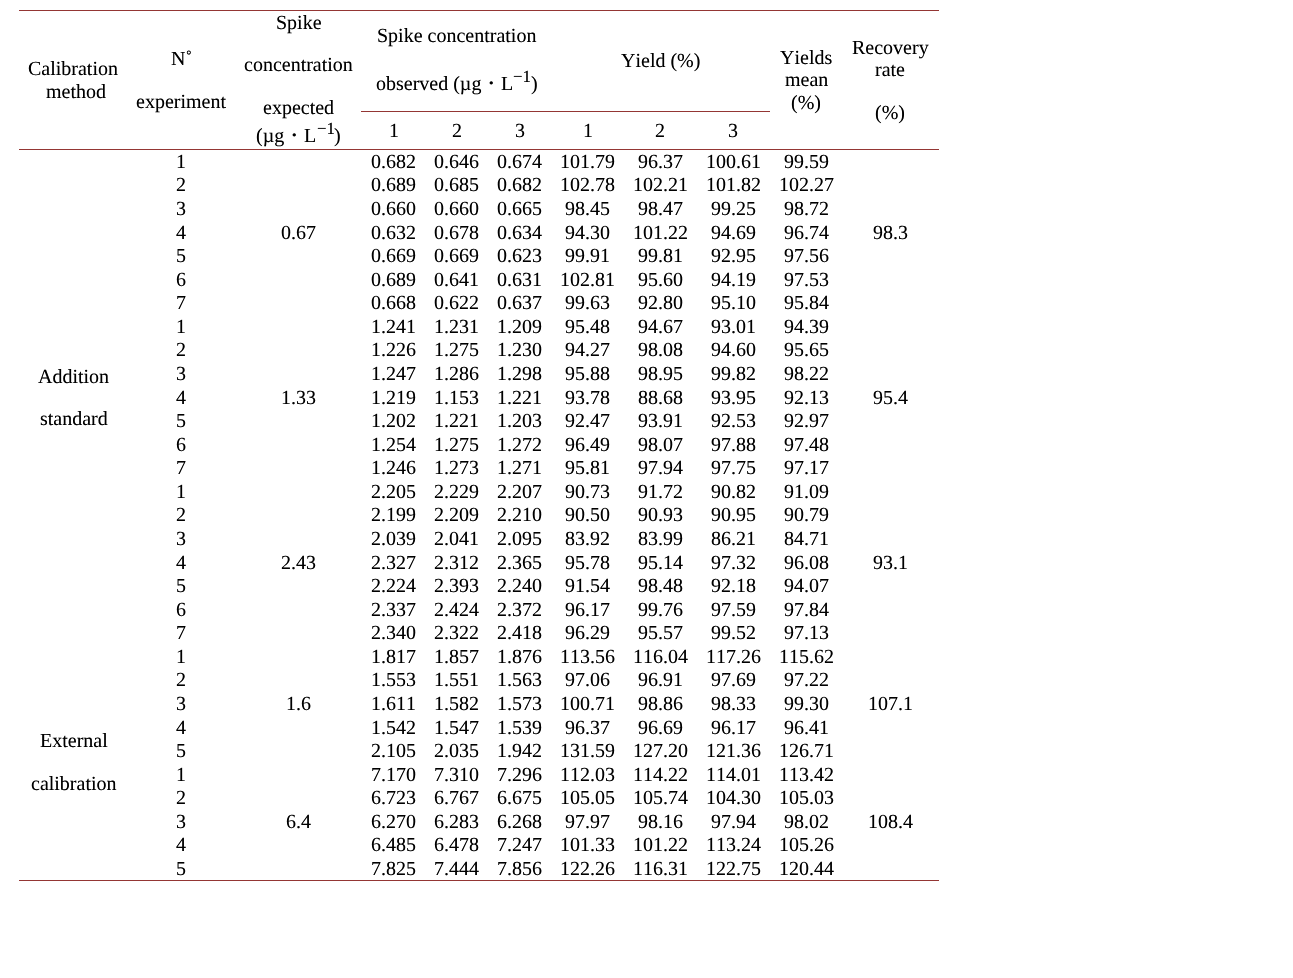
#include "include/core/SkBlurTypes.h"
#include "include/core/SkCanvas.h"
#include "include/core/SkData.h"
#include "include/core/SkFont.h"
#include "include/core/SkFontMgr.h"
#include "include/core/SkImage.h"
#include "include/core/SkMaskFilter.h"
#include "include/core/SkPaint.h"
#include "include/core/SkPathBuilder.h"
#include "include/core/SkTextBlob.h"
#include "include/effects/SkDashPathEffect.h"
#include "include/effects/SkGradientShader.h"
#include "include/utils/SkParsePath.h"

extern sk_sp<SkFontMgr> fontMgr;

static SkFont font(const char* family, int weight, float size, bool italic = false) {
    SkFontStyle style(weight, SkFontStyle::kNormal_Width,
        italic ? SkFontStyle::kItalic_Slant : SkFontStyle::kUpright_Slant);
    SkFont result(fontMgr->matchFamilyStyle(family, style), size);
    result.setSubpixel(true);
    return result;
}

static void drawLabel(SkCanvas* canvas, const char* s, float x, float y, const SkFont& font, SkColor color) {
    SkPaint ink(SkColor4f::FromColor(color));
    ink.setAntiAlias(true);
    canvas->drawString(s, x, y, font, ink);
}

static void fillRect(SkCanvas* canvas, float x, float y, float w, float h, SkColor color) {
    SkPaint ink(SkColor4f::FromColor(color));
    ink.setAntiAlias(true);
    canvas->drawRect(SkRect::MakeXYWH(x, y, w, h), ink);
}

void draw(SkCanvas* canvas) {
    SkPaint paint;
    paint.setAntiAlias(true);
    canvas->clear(0xFFFFFFFF);
    SkFont font1 = font("Liberation Serif", 400, 20);
    drawLabel(canvas, "Calibration", 28, 75, font1, 0xFF000000);
    drawLabel(canvas, "method", 46, 98, font1, 0xFF000000);
    drawLabel(canvas, "N˚", 171, 65, font1, 0xFF000000);
    drawLabel(canvas, "experiment", 136, 108, font1, 0xFF000000);
    drawLabel(canvas, "Spike", 276, 29, font1, 0xFF000000);
    drawLabel(canvas, "concentration", 244, 71, font1, 0xFF000000);
    drawLabel(canvas, "expected", 263, 114, font1, 0xFF000000);
    drawLabel(canvas, "(µg", 256, 142, font1, 0xFF000000);
    SkFont font2 = font("WenQuanYi Zen Hei", 500, 20);
    drawLabel(canvas, "・", 284, 142, font2, 0xFF000000);
    drawLabel(canvas, "L", 304, 142, font1, 0xFF000000);
    SkFont font3 = font("Liberation Serif", 400, 17);
    drawLabel(canvas, "−1", 317, 134, font3, 0xFF000000);
    drawLabel(canvas, ")", 334, 142, font1, 0xFF000000);
    drawLabel(canvas, "Spike concentration", 377, 42, font1, 0xFF000000);
    drawLabel(canvas, "observed (µg", 376, 90, font1, 0xFF000000);
    drawLabel(canvas, "・", 481, 90, font2, 0xFF000000);
    drawLabel(canvas, "L", 501, 90, font1, 0xFF000000);
    drawLabel(canvas, "−1", 513, 82, font3, 0xFF000000);
    drawLabel(canvas, ")", 531, 90, font1, 0xFF000000);
    fillRect(canvas, 361, 111, 409, 1, 0xFF943634);
    drawLabel(canvas, "Yield (%)", 621, 67, font1, 0xFF000000);
    drawLabel(canvas, "Yields", 780, 64, font1, 0xFF000000);
    drawLabel(canvas, "mean", 785, 86, font1, 0xFF000000);
    drawLabel(canvas, "(%)", 791, 109, font1, 0xFF000000);
    fillRect(canvas, 19, 10, 920, 1, 0xFF943634);
    fillRect(canvas, 19, 149, 751, 1, 0xFF943634);
    fillRect(canvas, 769, 149, 170, 1, 0xFF943634);
    drawLabel(canvas, "Recovery", 852, 54, font1, 0xFF000000);
    drawLabel(canvas, "rate", 875, 76, font1, 0xFF000000);
    drawLabel(canvas, "(%)", 875, 119, font1, 0xFF000000);
    drawLabel(canvas, "1", 389, 137, font1, 0xFF000000);
    drawLabel(canvas, "2", 452, 137, font1, 0xFF000000);
    drawLabel(canvas, "3", 515, 137, font1, 0xFF000000);
    drawLabel(canvas, "1", 583, 137, font1, 0xFF000000);
    drawLabel(canvas, "2", 655, 137, font1, 0xFF000000);
    drawLabel(canvas, "3", 728, 137, font1, 0xFF000000);
    drawLabel(canvas, "1", 176, 168, font1, 0xFF000000);
    drawLabel(canvas, "0.682", 371, 168, font1, 0xFF000000);
    drawLabel(canvas, "0.646", 434, 168, font1, 0xFF000000);
    drawLabel(canvas, "0.674", 497, 168, font1, 0xFF000000);
    drawLabel(canvas, "101.79", 560, 168, font1, 0xFF000000);
    drawLabel(canvas, "96.37", 638, 168, font1, 0xFF000000);
    drawLabel(canvas, "100.61", 706, 168, font1, 0xFF000000);
    drawLabel(canvas, "99.59", 784, 168, font1, 0xFF000000);
    drawLabel(canvas, "0.67", 281, 239, font1, 0xFF000000);
    drawLabel(canvas, "98.3", 873, 239, font1, 0xFF000000);
    drawLabel(canvas, "Addition", 38, 383, font1, 0xFF000000);
    drawLabel(canvas, "standard", 40, 425, font1, 0xFF000000);
    drawLabel(canvas, "2", 176, 191, font1, 0xFF000000);
    drawLabel(canvas, "0.689", 371, 191, font1, 0xFF000000);
    drawLabel(canvas, "0.685", 434, 191, font1, 0xFF000000);
    drawLabel(canvas, "0.682", 497, 191, font1, 0xFF000000);
    drawLabel(canvas, "102.78", 560, 191, font1, 0xFF000000);
    drawLabel(canvas, "102.21", 633, 191, font1, 0xFF000000);
    drawLabel(canvas, "101.82", 706, 191, font1, 0xFF000000);
    drawLabel(canvas, "102.27", 779, 191, font1, 0xFF000000);
    drawLabel(canvas, "3", 176, 215, font1, 0xFF000000);
    drawLabel(canvas, "0.660", 371, 215, font1, 0xFF000000);
    drawLabel(canvas, "0.660", 434, 215, font1, 0xFF000000);
    drawLabel(canvas, "0.665", 497, 215, font1, 0xFF000000);
    drawLabel(canvas, "98.45", 565, 215, font1, 0xFF000000);
    drawLabel(canvas, "98.47", 638, 215, font1, 0xFF000000);
    drawLabel(canvas, "99.25", 711, 215, font1, 0xFF000000);
    drawLabel(canvas, "98.72", 784, 215, font1, 0xFF000000);
    drawLabel(canvas, "4", 176, 239, font1, 0xFF000000);
    drawLabel(canvas, "0.632", 371, 239, font1, 0xFF000000);
    drawLabel(canvas, "0.678", 434, 239, font1, 0xFF000000);
    drawLabel(canvas, "0.634", 497, 239, font1, 0xFF000000);
    drawLabel(canvas, "94.30", 565, 239, font1, 0xFF000000);
    drawLabel(canvas, "101.22", 633, 239, font1, 0xFF000000);
    drawLabel(canvas, "94.69", 711, 239, font1, 0xFF000000);
    drawLabel(canvas, "96.74", 784, 239, font1, 0xFF000000);
    drawLabel(canvas, "5", 176, 262, font1, 0xFF000000);
    drawLabel(canvas, "0.669", 371, 262, font1, 0xFF000000);
    drawLabel(canvas, "0.669", 434, 262, font1, 0xFF000000);
    drawLabel(canvas, "0.623", 497, 262, font1, 0xFF000000);
    drawLabel(canvas, "99.91", 565, 262, font1, 0xFF000000);
    drawLabel(canvas, "99.81", 638, 262, font1, 0xFF000000);
    drawLabel(canvas, "92.95", 711, 262, font1, 0xFF000000);
    drawLabel(canvas, "97.56", 784, 262, font1, 0xFF000000);
    drawLabel(canvas, "6", 176, 286, font1, 0xFF000000);
    drawLabel(canvas, "0.689", 371, 286, font1, 0xFF000000);
    drawLabel(canvas, "0.641", 434, 286, font1, 0xFF000000);
    drawLabel(canvas, "0.631", 497, 286, font1, 0xFF000000);
    drawLabel(canvas, "102.81", 560, 286, font1, 0xFF000000);
    drawLabel(canvas, "95.60", 638, 286, font1, 0xFF000000);
    drawLabel(canvas, "94.19", 711, 286, font1, 0xFF000000);
    drawLabel(canvas, "97.53", 784, 286, font1, 0xFF000000);
    drawLabel(canvas, "7", 176, 309, font1, 0xFF000000);
    drawLabel(canvas, "0.668", 371, 309, font1, 0xFF000000);
    drawLabel(canvas, "0.622", 434, 309, font1, 0xFF000000);
    drawLabel(canvas, "0.637", 497, 309, font1, 0xFF000000);
    drawLabel(canvas, "99.63", 565, 309, font1, 0xFF000000);
    drawLabel(canvas, "92.80", 638, 309, font1, 0xFF000000);
    drawLabel(canvas, "95.10", 711, 309, font1, 0xFF000000);
    drawLabel(canvas, "95.84", 784, 309, font1, 0xFF000000);
    drawLabel(canvas, "1", 176, 333, font1, 0xFF000000);
    drawLabel(canvas, "1.241", 371, 333, font1, 0xFF000000);
    drawLabel(canvas, "1.231", 434, 333, font1, 0xFF000000);
    drawLabel(canvas, "1.209", 497, 333, font1, 0xFF000000);
    drawLabel(canvas, "95.48", 565, 333, font1, 0xFF000000);
    drawLabel(canvas, "94.67", 638, 333, font1, 0xFF000000);
    drawLabel(canvas, "93.01", 711, 333, font1, 0xFF000000);
    drawLabel(canvas, "94.39", 784, 333, font1, 0xFF000000);
    drawLabel(canvas, "1.33", 281, 404, font1, 0xFF000000);
    drawLabel(canvas, "95.4", 873, 404, font1, 0xFF000000);
    drawLabel(canvas, "2", 176, 356, font1, 0xFF000000);
    drawLabel(canvas, "1.226", 371, 356, font1, 0xFF000000);
    drawLabel(canvas, "1.275", 434, 356, font1, 0xFF000000);
    drawLabel(canvas, "1.230", 497, 356, font1, 0xFF000000);
    drawLabel(canvas, "94.27", 565, 356, font1, 0xFF000000);
    drawLabel(canvas, "98.08", 638, 356, font1, 0xFF000000);
    drawLabel(canvas, "94.60", 711, 356, font1, 0xFF000000);
    drawLabel(canvas, "95.65", 784, 356, font1, 0xFF000000);
    drawLabel(canvas, "3", 176, 380, font1, 0xFF000000);
    drawLabel(canvas, "1.247", 371, 380, font1, 0xFF000000);
    drawLabel(canvas, "1.286", 434, 380, font1, 0xFF000000);
    drawLabel(canvas, "1.298", 497, 380, font1, 0xFF000000);
    drawLabel(canvas, "95.88", 565, 380, font1, 0xFF000000);
    drawLabel(canvas, "98.95", 638, 380, font1, 0xFF000000);
    drawLabel(canvas, "99.82", 711, 380, font1, 0xFF000000);
    drawLabel(canvas, "98.22", 784, 380, font1, 0xFF000000);
    drawLabel(canvas, "4", 176, 404, font1, 0xFF000000);
    drawLabel(canvas, "1.219", 371, 404, font1, 0xFF000000);
    drawLabel(canvas, "1.153", 434, 404, font1, 0xFF000000);
    drawLabel(canvas, "1.221", 497, 404, font1, 0xFF000000);
    drawLabel(canvas, "93.78", 565, 404, font1, 0xFF000000);
    drawLabel(canvas, "88.68", 638, 404, font1, 0xFF000000);
    drawLabel(canvas, "93.95", 711, 404, font1, 0xFF000000);
    drawLabel(canvas, "92.13", 784, 404, font1, 0xFF000000);
    drawLabel(canvas, "5", 176, 427, font1, 0xFF000000);
    drawLabel(canvas, "1.202", 371, 427, font1, 0xFF000000);
    drawLabel(canvas, "1.221", 434, 427, font1, 0xFF000000);
    drawLabel(canvas, "1.203", 497, 427, font1, 0xFF000000);
    drawLabel(canvas, "92.47", 565, 427, font1, 0xFF000000);
    drawLabel(canvas, "93.91", 638, 427, font1, 0xFF000000);
    drawLabel(canvas, "92.53", 711, 427, font1, 0xFF000000);
    drawLabel(canvas, "92.97", 784, 427, font1, 0xFF000000);
    drawLabel(canvas, "6", 176, 451, font1, 0xFF000000);
    drawLabel(canvas, "1.254", 371, 451, font1, 0xFF000000);
    drawLabel(canvas, "1.275", 434, 451, font1, 0xFF000000);
    drawLabel(canvas, "1.272", 497, 451, font1, 0xFF000000);
    drawLabel(canvas, "96.49", 565, 451, font1, 0xFF000000);
    drawLabel(canvas, "98.07", 638, 451, font1, 0xFF000000);
    drawLabel(canvas, "97.88", 711, 451, font1, 0xFF000000);
    drawLabel(canvas, "97.48", 784, 451, font1, 0xFF000000);
    drawLabel(canvas, "7", 176, 474, font1, 0xFF000000);
    drawLabel(canvas, "1.246", 371, 474, font1, 0xFF000000);
    drawLabel(canvas, "1.273", 434, 474, font1, 0xFF000000);
    drawLabel(canvas, "1.271", 497, 474, font1, 0xFF000000);
    drawLabel(canvas, "95.81", 565, 474, font1, 0xFF000000);
    drawLabel(canvas, "97.94", 638, 474, font1, 0xFF000000);
    drawLabel(canvas, "97.75", 711, 474, font1, 0xFF000000);
    drawLabel(canvas, "97.17", 784, 474, font1, 0xFF000000);
    drawLabel(canvas, "1", 176, 498, font1, 0xFF000000);
    drawLabel(canvas, "2.205", 371, 498, font1, 0xFF000000);
    drawLabel(canvas, "2.229", 434, 498, font1, 0xFF000000);
    drawLabel(canvas, "2.207", 497, 498, font1, 0xFF000000);
    drawLabel(canvas, "90.73", 565, 498, font1, 0xFF000000);
    drawLabel(canvas, "91.72", 638, 498, font1, 0xFF000000);
    drawLabel(canvas, "90.82", 711, 498, font1, 0xFF000000);
    drawLabel(canvas, "91.09", 784, 498, font1, 0xFF000000);
    drawLabel(canvas, "2.43", 281, 569, font1, 0xFF000000);
    drawLabel(canvas, "93.1", 873, 569, font1, 0xFF000000);
    drawLabel(canvas, "2", 176, 521, font1, 0xFF000000);
    drawLabel(canvas, "2.199", 371, 521, font1, 0xFF000000);
    drawLabel(canvas, "2.209", 434, 521, font1, 0xFF000000);
    drawLabel(canvas, "2.210", 497, 521, font1, 0xFF000000);
    drawLabel(canvas, "90.50", 565, 521, font1, 0xFF000000);
    drawLabel(canvas, "90.93", 638, 521, font1, 0xFF000000);
    drawLabel(canvas, "90.95", 711, 521, font1, 0xFF000000);
    drawLabel(canvas, "90.79", 784, 521, font1, 0xFF000000);
    drawLabel(canvas, "3", 176, 545, font1, 0xFF000000);
    drawLabel(canvas, "2.039", 371, 545, font1, 0xFF000000);
    drawLabel(canvas, "2.041", 434, 545, font1, 0xFF000000);
    drawLabel(canvas, "2.095", 497, 545, font1, 0xFF000000);
    drawLabel(canvas, "83.92", 565, 545, font1, 0xFF000000);
    drawLabel(canvas, "83.99", 638, 545, font1, 0xFF000000);
    drawLabel(canvas, "86.21", 711, 545, font1, 0xFF000000);
    drawLabel(canvas, "84.71", 784, 545, font1, 0xFF000000);
    drawLabel(canvas, "4", 176, 569, font1, 0xFF000000);
    drawLabel(canvas, "2.327", 371, 569, font1, 0xFF000000);
    drawLabel(canvas, "2.312", 434, 569, font1, 0xFF000000);
    drawLabel(canvas, "2.365", 497, 569, font1, 0xFF000000);
    drawLabel(canvas, "95.78", 565, 569, font1, 0xFF000000);
    drawLabel(canvas, "95.14", 638, 569, font1, 0xFF000000);
    drawLabel(canvas, "97.32", 711, 569, font1, 0xFF000000);
    drawLabel(canvas, "96.08", 784, 569, font1, 0xFF000000);
    drawLabel(canvas, "5", 176, 592, font1, 0xFF000000);
    drawLabel(canvas, "2.224", 371, 592, font1, 0xFF000000);
    drawLabel(canvas, "2.393", 434, 592, font1, 0xFF000000);
    drawLabel(canvas, "2.240", 497, 592, font1, 0xFF000000);
    drawLabel(canvas, "91.54", 565, 592, font1, 0xFF000000);
    drawLabel(canvas, "98.48", 638, 592, font1, 0xFF000000);
    drawLabel(canvas, "92.18", 711, 592, font1, 0xFF000000);
    drawLabel(canvas, "94.07", 784, 592, font1, 0xFF000000);
    drawLabel(canvas, "6", 176, 616, font1, 0xFF000000);
    drawLabel(canvas, "2.337", 371, 616, font1, 0xFF000000);
    drawLabel(canvas, "2.424", 434, 616, font1, 0xFF000000);
    drawLabel(canvas, "2.372", 497, 616, font1, 0xFF000000);
    drawLabel(canvas, "96.17", 565, 616, font1, 0xFF000000);
    drawLabel(canvas, "99.76", 638, 616, font1, 0xFF000000);
    drawLabel(canvas, "97.59", 711, 616, font1, 0xFF000000);
    drawLabel(canvas, "97.84", 784, 616, font1, 0xFF000000);
    drawLabel(canvas, "7", 176, 639, font1, 0xFF000000);
    drawLabel(canvas, "2.340", 371, 639, font1, 0xFF000000);
    drawLabel(canvas, "2.322", 434, 639, font1, 0xFF000000);
    drawLabel(canvas, "2.418", 497, 639, font1, 0xFF000000);
    drawLabel(canvas, "96.29", 565, 639, font1, 0xFF000000);
    drawLabel(canvas, "95.57", 638, 639, font1, 0xFF000000);
    drawLabel(canvas, "99.52", 711, 639, font1, 0xFF000000);
    drawLabel(canvas, "97.13", 784, 639, font1, 0xFF000000);
    drawLabel(canvas, "1", 176, 663, font1, 0xFF000000);
    drawLabel(canvas, "1.817", 371, 663, font1, 0xFF000000);
    drawLabel(canvas, "1.857", 434, 663, font1, 0xFF000000);
    drawLabel(canvas, "1.876", 497, 663, font1, 0xFF000000);
    drawLabel(canvas, "113.56", 560, 663, font1, 0xFF000000);
    drawLabel(canvas, "116.04", 633, 663, font1, 0xFF000000);
    drawLabel(canvas, "117.26", 706, 663, font1, 0xFF000000);
    drawLabel(canvas, "115.62", 779, 663, font1, 0xFF000000);
    drawLabel(canvas, "1.6", 286, 710, font1, 0xFF000000);
    drawLabel(canvas, "107.1", 868, 710, font1, 0xFF000000);
    drawLabel(canvas, "External", 40, 747, font1, 0xFF000000);
    drawLabel(canvas, "calibration", 31, 790, font1, 0xFF000000);
    drawLabel(canvas, "2", 176, 686, font1, 0xFF000000);
    drawLabel(canvas, "1.553", 371, 686, font1, 0xFF000000);
    drawLabel(canvas, "1.551", 434, 686, font1, 0xFF000000);
    drawLabel(canvas, "1.563", 497, 686, font1, 0xFF000000);
    drawLabel(canvas, "97.06", 565, 686, font1, 0xFF000000);
    drawLabel(canvas, "96.91", 638, 686, font1, 0xFF000000);
    drawLabel(canvas, "97.69", 711, 686, font1, 0xFF000000);
    drawLabel(canvas, "97.22", 784, 686, font1, 0xFF000000);
    drawLabel(canvas, "3", 176, 710, font1, 0xFF000000);
    drawLabel(canvas, "1.611", 371, 710, font1, 0xFF000000);
    drawLabel(canvas, "1.582", 434, 710, font1, 0xFF000000);
    drawLabel(canvas, "1.573", 497, 710, font1, 0xFF000000);
    drawLabel(canvas, "100.71", 560, 710, font1, 0xFF000000);
    drawLabel(canvas, "98.86", 638, 710, font1, 0xFF000000);
    drawLabel(canvas, "98.33", 711, 710, font1, 0xFF000000);
    drawLabel(canvas, "99.30", 784, 710, font1, 0xFF000000);
    drawLabel(canvas, "4", 176, 734, font1, 0xFF000000);
    drawLabel(canvas, "1.542", 371, 734, font1, 0xFF000000);
    drawLabel(canvas, "1.547", 434, 734, font1, 0xFF000000);
    drawLabel(canvas, "1.539", 497, 734, font1, 0xFF000000);
    drawLabel(canvas, "96.37", 565, 734, font1, 0xFF000000);
    drawLabel(canvas, "96.69", 638, 734, font1, 0xFF000000);
    drawLabel(canvas, "96.17", 711, 734, font1, 0xFF000000);
    drawLabel(canvas, "96.41", 784, 734, font1, 0xFF000000);
    drawLabel(canvas, "5", 176, 757, font1, 0xFF000000);
    drawLabel(canvas, "2.105", 371, 757, font1, 0xFF000000);
    drawLabel(canvas, "2.035", 434, 757, font1, 0xFF000000);
    drawLabel(canvas, "1.942", 497, 757, font1, 0xFF000000);
    drawLabel(canvas, "131.59", 560, 757, font1, 0xFF000000);
    drawLabel(canvas, "127.20", 633, 757, font1, 0xFF000000);
    drawLabel(canvas, "121.36", 706, 757, font1, 0xFF000000);
    drawLabel(canvas, "126.71", 779, 757, font1, 0xFF000000);
    drawLabel(canvas, "1", 176, 781, font1, 0xFF000000);
    drawLabel(canvas, "7.170", 371, 781, font1, 0xFF000000);
    drawLabel(canvas, "7.310", 434, 781, font1, 0xFF000000);
    drawLabel(canvas, "7.296", 497, 781, font1, 0xFF000000);
    drawLabel(canvas, "112.03", 560, 781, font1, 0xFF000000);
    drawLabel(canvas, "114.22", 633, 781, font1, 0xFF000000);
    drawLabel(canvas, "114.01", 706, 781, font1, 0xFF000000);
    drawLabel(canvas, "113.42", 779, 781, font1, 0xFF000000);
    drawLabel(canvas, "6.4", 286, 828, font1, 0xFF000000);
    drawLabel(canvas, "108.4", 868, 828, font1, 0xFF000000);
    drawLabel(canvas, "2", 176, 804, font1, 0xFF000000);
    drawLabel(canvas, "6.723", 371, 804, font1, 0xFF000000);
    drawLabel(canvas, "6.767", 434, 804, font1, 0xFF000000);
    drawLabel(canvas, "6.675", 497, 804, font1, 0xFF000000);
    drawLabel(canvas, "105.05", 560, 804, font1, 0xFF000000);
    drawLabel(canvas, "105.74", 633, 804, font1, 0xFF000000);
    drawLabel(canvas, "104.30", 706, 804, font1, 0xFF000000);
    drawLabel(canvas, "105.03", 779, 804, font1, 0xFF000000);
    drawLabel(canvas, "3", 176, 828, font1, 0xFF000000);
    drawLabel(canvas, "6.270", 371, 828, font1, 0xFF000000);
    drawLabel(canvas, "6.283", 434, 828, font1, 0xFF000000);
    drawLabel(canvas, "6.268", 497, 828, font1, 0xFF000000);
    drawLabel(canvas, "97.97", 565, 828, font1, 0xFF000000);
    drawLabel(canvas, "98.16", 638, 828, font1, 0xFF000000);
    drawLabel(canvas, "97.94", 711, 828, font1, 0xFF000000);
    drawLabel(canvas, "98.02", 784, 828, font1, 0xFF000000);
    drawLabel(canvas, "4", 176, 851, font1, 0xFF000000);
    drawLabel(canvas, "6.485", 371, 851, font1, 0xFF000000);
    drawLabel(canvas, "6.478", 434, 851, font1, 0xFF000000);
    drawLabel(canvas, "7.247", 497, 851, font1, 0xFF000000);
    drawLabel(canvas, "101.33", 560, 851, font1, 0xFF000000);
    drawLabel(canvas, "101.22", 633, 851, font1, 0xFF000000);
    drawLabel(canvas, "113.24", 706, 851, font1, 0xFF000000);
    drawLabel(canvas, "105.26", 779, 851, font1, 0xFF000000);
    fillRect(canvas, 361, 880, 578, 1, 0xFF943634);
    fillRect(canvas, 19, 880, 344, 1, 0xFF943634);
    drawLabel(canvas, "5", 176, 875, font1, 0xFF000000);
    drawLabel(canvas, "7.825", 371, 875, font1, 0xFF000000);
    drawLabel(canvas, "7.444", 434, 875, font1, 0xFF000000);
    drawLabel(canvas, "7.856", 497, 875, font1, 0xFF000000);
    drawLabel(canvas, "122.26", 560, 875, font1, 0xFF000000);
    drawLabel(canvas, "116.31", 633, 875, font1, 0xFF000000);
    drawLabel(canvas, "122.75", 706, 875, font1, 0xFF000000);
    drawLabel(canvas, "120.44", 779, 875, font1, 0xFF000000);
}
